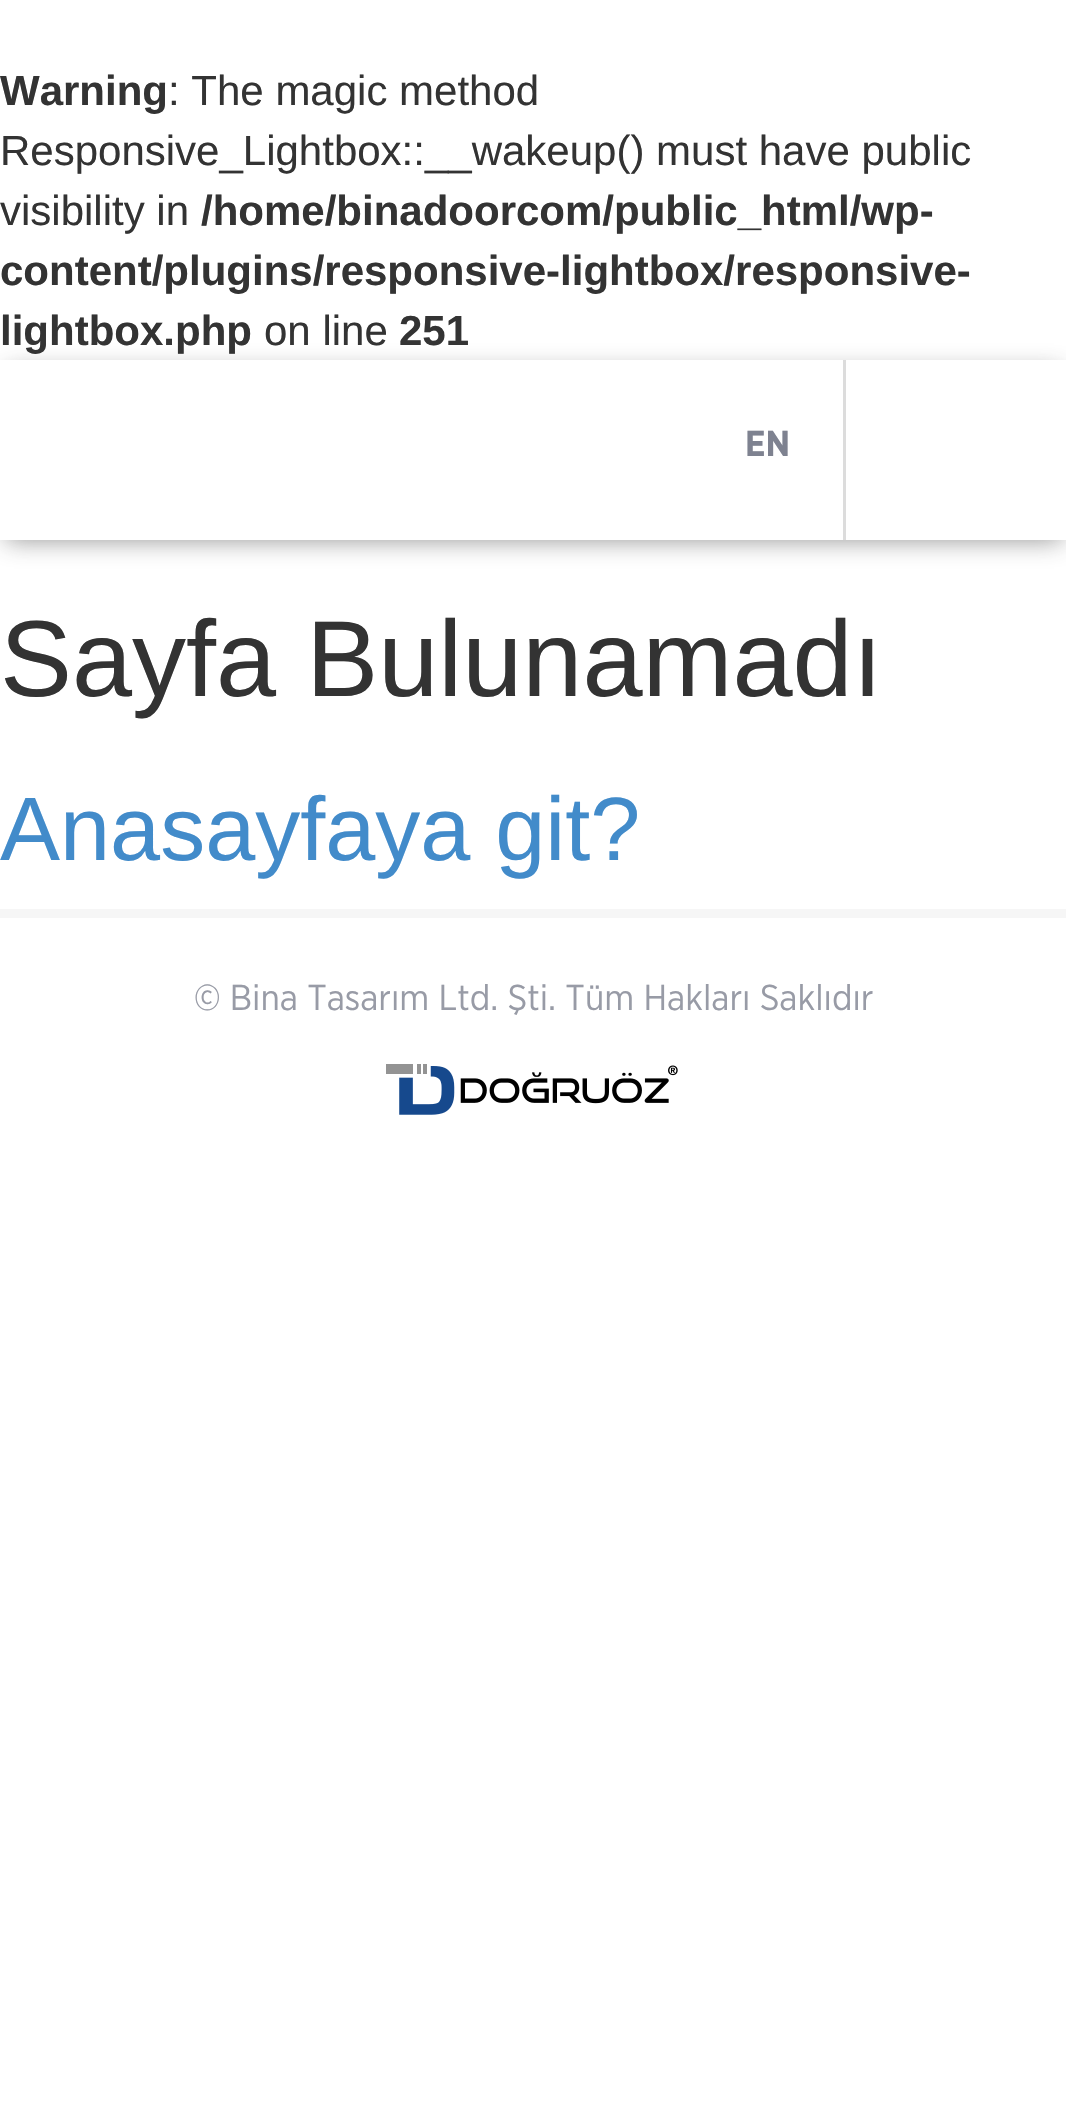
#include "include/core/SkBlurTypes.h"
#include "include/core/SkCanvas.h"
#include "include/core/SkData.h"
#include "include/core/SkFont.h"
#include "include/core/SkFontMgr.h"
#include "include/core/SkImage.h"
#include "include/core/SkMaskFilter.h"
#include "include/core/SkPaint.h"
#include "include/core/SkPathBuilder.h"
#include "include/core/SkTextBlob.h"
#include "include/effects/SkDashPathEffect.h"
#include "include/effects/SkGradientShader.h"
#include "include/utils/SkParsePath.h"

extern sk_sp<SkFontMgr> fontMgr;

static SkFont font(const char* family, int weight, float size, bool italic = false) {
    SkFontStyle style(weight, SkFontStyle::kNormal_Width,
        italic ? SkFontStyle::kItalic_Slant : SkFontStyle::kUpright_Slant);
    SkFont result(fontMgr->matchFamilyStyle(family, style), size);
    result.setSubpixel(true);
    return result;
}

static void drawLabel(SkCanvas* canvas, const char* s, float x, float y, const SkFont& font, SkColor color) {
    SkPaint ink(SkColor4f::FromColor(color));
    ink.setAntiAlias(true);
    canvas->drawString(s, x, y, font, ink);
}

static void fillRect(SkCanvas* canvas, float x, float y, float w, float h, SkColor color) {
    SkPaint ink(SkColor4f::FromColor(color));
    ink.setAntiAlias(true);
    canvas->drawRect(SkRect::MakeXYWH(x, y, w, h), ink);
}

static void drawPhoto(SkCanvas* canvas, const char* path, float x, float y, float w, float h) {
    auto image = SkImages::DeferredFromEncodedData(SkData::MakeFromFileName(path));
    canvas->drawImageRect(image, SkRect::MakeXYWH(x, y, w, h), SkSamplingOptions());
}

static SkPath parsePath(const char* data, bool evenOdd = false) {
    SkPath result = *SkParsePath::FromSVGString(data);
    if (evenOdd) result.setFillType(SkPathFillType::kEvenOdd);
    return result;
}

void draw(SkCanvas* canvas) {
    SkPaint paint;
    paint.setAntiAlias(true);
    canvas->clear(0xFFFFFFFF);
    SkFont font1 = font("Liberation Sans", 700, 42);
    drawLabel(canvas, "Warning", 0, 105, font1, 0xFF333333);
    SkFont font2 = font("Liberation Sans", 400, 42);
    drawLabel(canvas, ": The magic method", 168, 105, font2, 0xFF333333);
    drawLabel(canvas, "Responsive_Lightbox::__wakeup() must have public", 0, 165, font2, 0xFF333333);
    drawLabel(canvas, "visibility in", 0, 225, font2, 0xFF333333);
    drawLabel(canvas, "/home/binadoorcom/public_html/wp-", 201, 225, font1, 0xFF333333);
    drawLabel(canvas, "content/plugins/responsive-lightbox/responsive-", 0, 285, font1, 0xFF333333);
    drawLabel(canvas, "lightbox.php", 0, 345, font1, 0xFF333333);
    drawLabel(canvas, "on line", 264, 345, font2, 0xFF333333);
    drawLabel(canvas, "251", 399, 345, font1, 0xFF333333);
    canvas->save();
    canvas->clipPath(parsePath("M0 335H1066V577H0ZM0 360H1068V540H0Z", true), true);
    paint.setColor(0x87323232);
    paint.setMaskFilter(SkMaskFilter::MakeBlur(kNormal_SkBlurStyle, 12));
    canvas->drawRect(SkRect::MakeXYWH(6, 372, 1056, 168), paint);
    paint.setMaskFilter(nullptr);
    canvas->restore();
    SkFont font3 = font("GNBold", 700, 36);
    drawLabel(canvas, "EN", 745, 456, font3, 0xFF7E8290);
    fillRect(canvas, 843, 360, 3, 180, 0xFFDCDCDC);
    SkFont font4 = font("Liberation Sans", 400, 108);
    drawLabel(canvas, "Sayfa Bulunamadı", 0, 696, font4, 0xFF333333);
    SkFont font5 = font("Liberation Sans", 400, 90);
    drawLabel(canvas, "Anasayfaya git?", 0, 860, font5, 0xFF428BCA);
    fillRect(canvas, 0, 909, 1066, 9, 0xFFF6F6F6);
    SkFont font6 = font("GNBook", 400, 36);
    drawLabel(canvas, "© Bina Tasarım Ltd. Şti. Tüm Hakları Saklıdır", 194, 1010, font6, 0xFF989BA6);
    drawPhoto(canvas, "assets/img1.png", 386, 1064, 292, 51);
}
